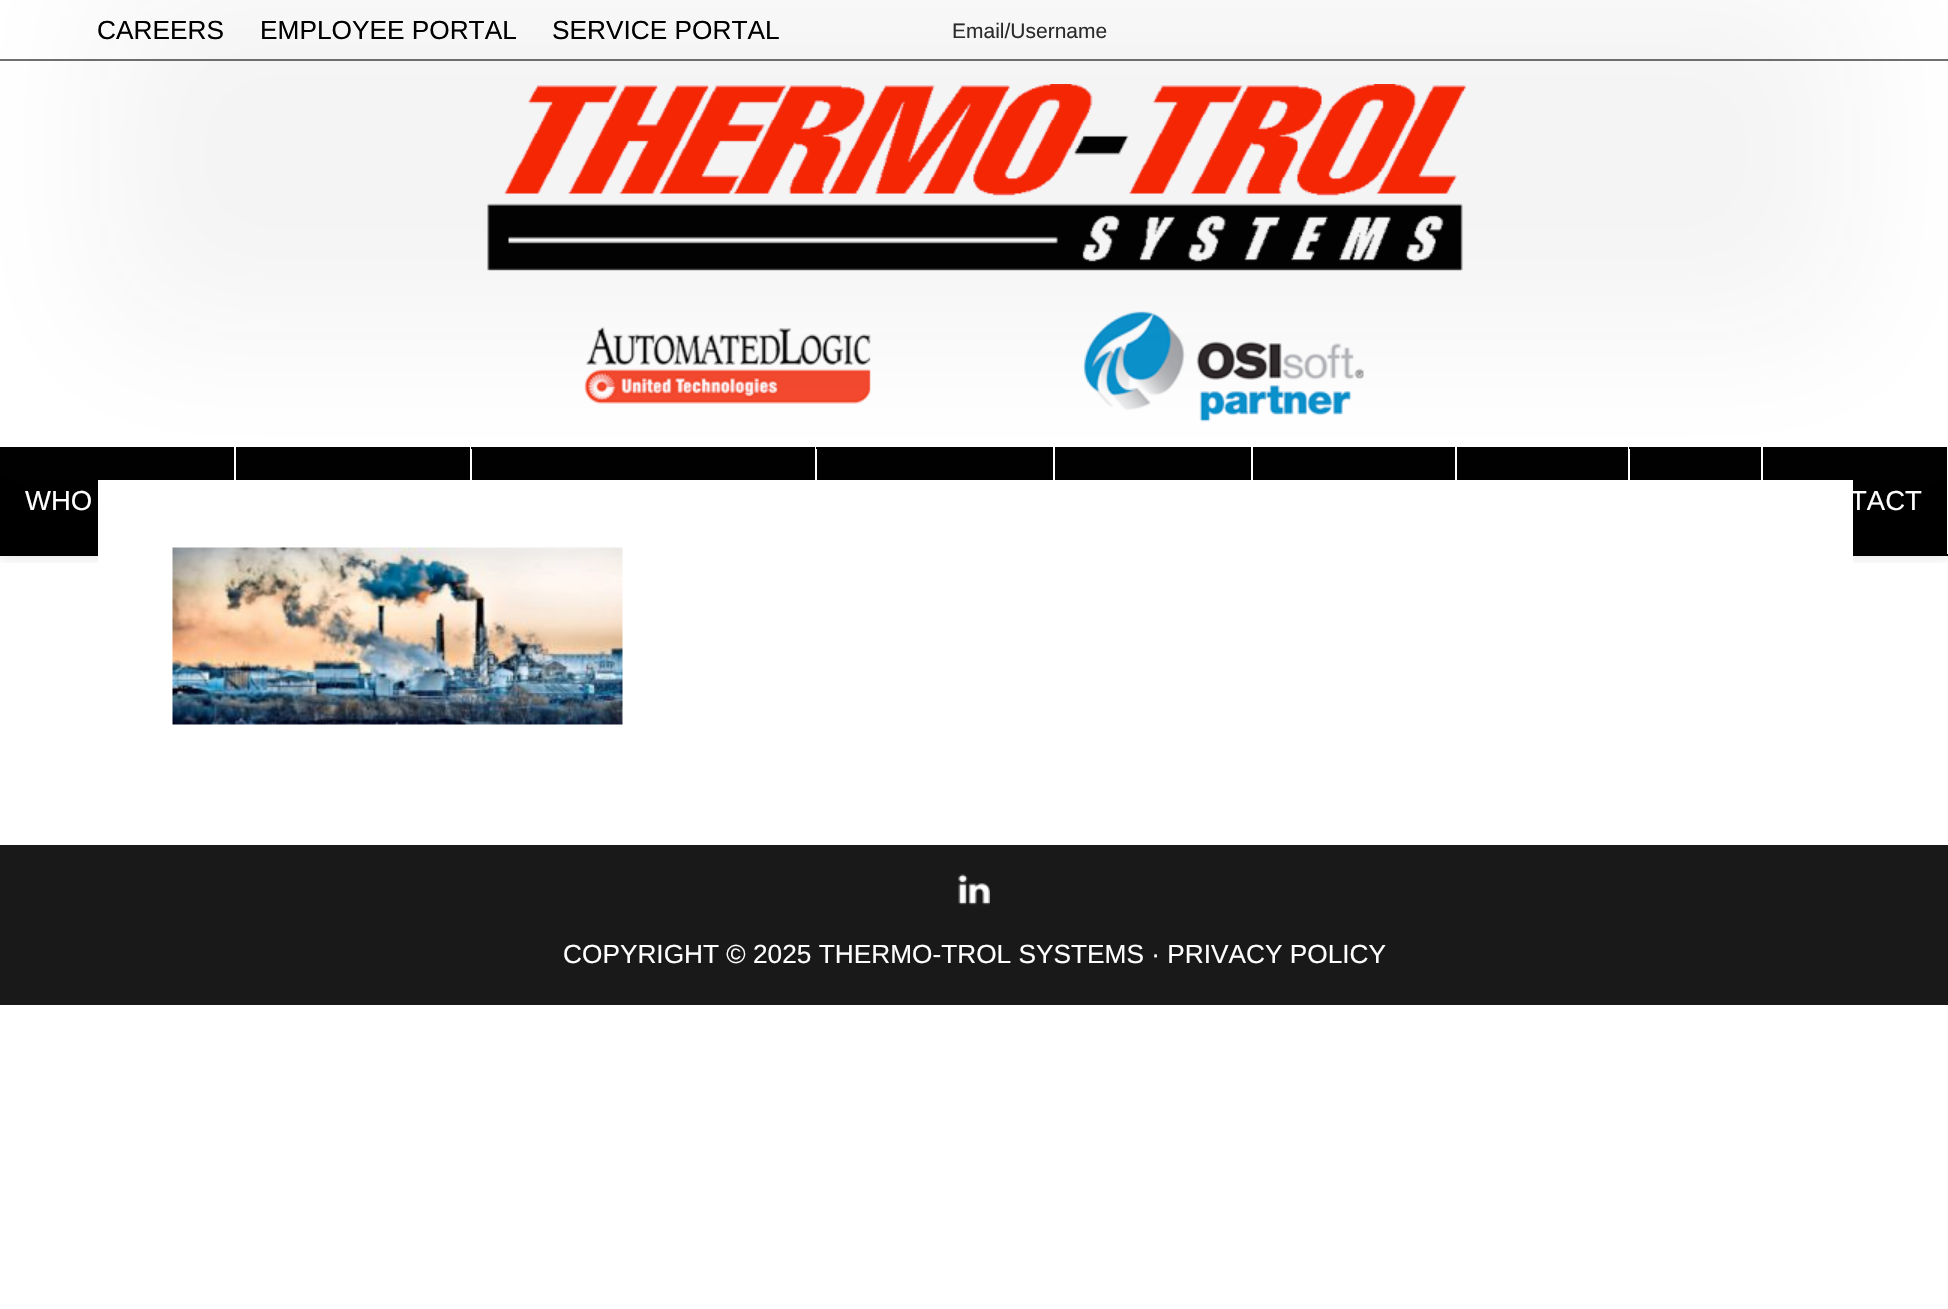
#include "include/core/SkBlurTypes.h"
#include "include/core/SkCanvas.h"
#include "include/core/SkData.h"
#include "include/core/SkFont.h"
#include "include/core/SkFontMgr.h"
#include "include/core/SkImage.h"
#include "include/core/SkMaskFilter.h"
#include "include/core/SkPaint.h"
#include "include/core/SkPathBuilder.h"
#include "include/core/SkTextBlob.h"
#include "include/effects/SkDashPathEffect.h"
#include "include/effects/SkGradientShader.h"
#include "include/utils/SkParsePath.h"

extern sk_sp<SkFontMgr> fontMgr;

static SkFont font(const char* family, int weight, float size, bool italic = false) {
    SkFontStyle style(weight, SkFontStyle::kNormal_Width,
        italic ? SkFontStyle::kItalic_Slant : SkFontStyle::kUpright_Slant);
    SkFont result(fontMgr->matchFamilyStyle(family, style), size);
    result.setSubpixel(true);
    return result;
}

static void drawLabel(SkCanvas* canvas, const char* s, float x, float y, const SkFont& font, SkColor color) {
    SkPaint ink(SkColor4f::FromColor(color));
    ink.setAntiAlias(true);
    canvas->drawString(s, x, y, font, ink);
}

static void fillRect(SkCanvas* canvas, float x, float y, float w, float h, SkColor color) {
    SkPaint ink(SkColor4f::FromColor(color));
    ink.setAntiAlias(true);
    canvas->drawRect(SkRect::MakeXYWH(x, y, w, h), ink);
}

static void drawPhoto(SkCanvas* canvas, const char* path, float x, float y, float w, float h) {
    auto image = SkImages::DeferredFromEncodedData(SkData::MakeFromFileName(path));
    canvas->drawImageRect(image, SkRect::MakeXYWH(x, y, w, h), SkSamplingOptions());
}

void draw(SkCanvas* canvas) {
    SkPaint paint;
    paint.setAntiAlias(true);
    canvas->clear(0xFFFFFFFF);
    canvas->save();
    canvas->clipRect(SkRect::MakeXYWH(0, 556, 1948, 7));
    paint.setColor(0x1A000000);
    paint.setMaskFilter(SkMaskFilter::MakeBlur(kNormal_SkBlurStyle, 6));
    canvas->drawRect(SkRect::MakeXYWH(0, 63, 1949, 495), paint);
    paint.setMaskFilter(nullptr);
    canvas->restore();
    fillRect(canvas, 0, 55, 1948, 4, 0xFFFFFFFF);
    fillRect(canvas, 0, 59, 1948, 2, 0xFF6E7070);
    drawPhoto(canvas, "assets/img2.png", 487, 84, 979, 338);
    fillRect(canvas, 0, 447, 1947, 107, 0xFF000000);
    fillRect(canvas, 470, 447, 2, 33, 0xFFFFFFFF);
    fillRect(canvas, 471, 447, 1, 2, 0xFF000000);
    fillRect(canvas, 815, 447, 2, 33, 0xFFFFFFFF);
    fillRect(canvas, 816, 447, 1, 2, 0xFF000000);
    fillRect(canvas, 1053, 447, 2, 33, 0xFFFFFFFF);
    fillRect(canvas, 1251, 447, 2, 33, 0xFFFFFFFF);
    fillRect(canvas, 1455, 447, 2, 33, 0xFFFFFFFF);
    fillRect(canvas, 1628, 447, 2, 33, 0xFFFFFFFF);
    fillRect(canvas, 1629, 447, 1, 2, 0xFF000000);
    fillRect(canvas, 1761, 447, 2, 33, 0xFFFFFFFF);
    fillRect(canvas, 234, 447, 2, 33, 0xFFFFFFFF);
    fillRect(canvas, 0, 554, 98, 2, 0xFF000000);
    fillRect(canvas, 1853, 554, 95, 2, 0xFF000000);
    paint.setColor(0x0D2A3139);
    paint.setMaskFilter(SkMaskFilter::MakeBlur(kNormal_SkBlurStyle, 75));
    canvas->drawRect(SkRect::MakeXYWH(98, -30, 1755, 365), paint);
    paint.setMaskFilter(nullptr);
    fillRect(canvas, 98, 480, 1755, 86, 0xFFFFFFFF);
    drawPhoto(canvas, "assets/img1.png", 172, 547, 451, 178);
    SkFont font1 = font("Liberation Sans", 400, 26.25f);
    drawLabel(canvas, "CAREERS", 97, 39, font1, 0xFF000000);
    drawLabel(canvas, "EMPLOYEE PORTAL", 260, 39, font1, 0xFF000000);
    drawLabel(canvas, "SERVICE PORTAL", 552, 39, font1, 0xFF000000);
    SkFont font2 = font("Liberation Sans", 400, 21);
    drawLabel(canvas, "Email/Username", 952, 38, font2, 0xFF2B2B2B);
    SkFont font3 = font("Liberation Sans", 400, 27.5f);
    drawLabel(canvas, "WHO", 25, 510, font3, 0xFFFFFFFF);
    drawLabel(canvas, "TACT", 1850, 510, font3, 0xFFFFFFFF);
    fillRect(canvas, 0, 845, 1948, 160, 0xFF191919);
    drawPhoto(canvas, "assets/img3.png", 958, 874, 32, 31);
    drawLabel(canvas, "COPYRIGHT © 2025 THERMO-TROL SYSTEMS · PRIVACY POLICY", 563, 963, font1, 0xFFFFFFFF);
}
